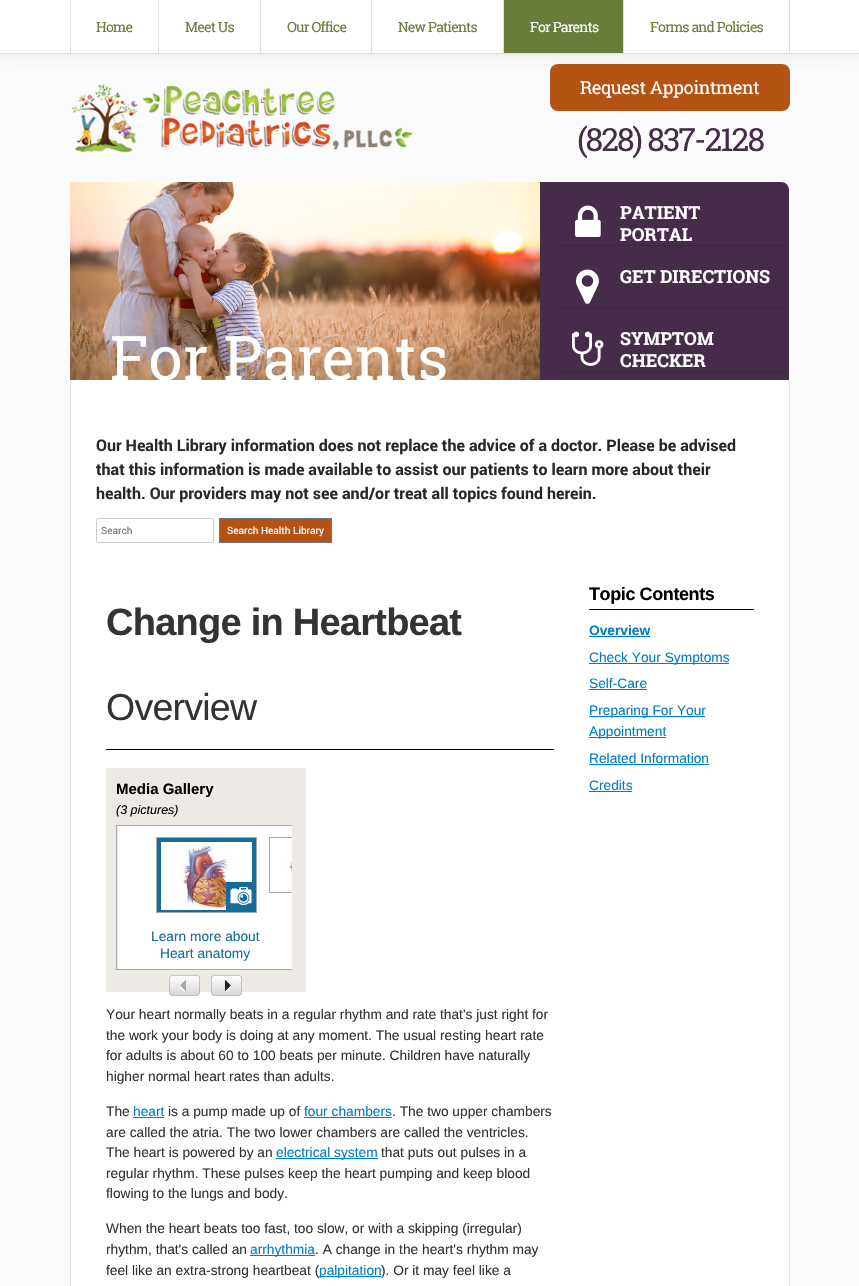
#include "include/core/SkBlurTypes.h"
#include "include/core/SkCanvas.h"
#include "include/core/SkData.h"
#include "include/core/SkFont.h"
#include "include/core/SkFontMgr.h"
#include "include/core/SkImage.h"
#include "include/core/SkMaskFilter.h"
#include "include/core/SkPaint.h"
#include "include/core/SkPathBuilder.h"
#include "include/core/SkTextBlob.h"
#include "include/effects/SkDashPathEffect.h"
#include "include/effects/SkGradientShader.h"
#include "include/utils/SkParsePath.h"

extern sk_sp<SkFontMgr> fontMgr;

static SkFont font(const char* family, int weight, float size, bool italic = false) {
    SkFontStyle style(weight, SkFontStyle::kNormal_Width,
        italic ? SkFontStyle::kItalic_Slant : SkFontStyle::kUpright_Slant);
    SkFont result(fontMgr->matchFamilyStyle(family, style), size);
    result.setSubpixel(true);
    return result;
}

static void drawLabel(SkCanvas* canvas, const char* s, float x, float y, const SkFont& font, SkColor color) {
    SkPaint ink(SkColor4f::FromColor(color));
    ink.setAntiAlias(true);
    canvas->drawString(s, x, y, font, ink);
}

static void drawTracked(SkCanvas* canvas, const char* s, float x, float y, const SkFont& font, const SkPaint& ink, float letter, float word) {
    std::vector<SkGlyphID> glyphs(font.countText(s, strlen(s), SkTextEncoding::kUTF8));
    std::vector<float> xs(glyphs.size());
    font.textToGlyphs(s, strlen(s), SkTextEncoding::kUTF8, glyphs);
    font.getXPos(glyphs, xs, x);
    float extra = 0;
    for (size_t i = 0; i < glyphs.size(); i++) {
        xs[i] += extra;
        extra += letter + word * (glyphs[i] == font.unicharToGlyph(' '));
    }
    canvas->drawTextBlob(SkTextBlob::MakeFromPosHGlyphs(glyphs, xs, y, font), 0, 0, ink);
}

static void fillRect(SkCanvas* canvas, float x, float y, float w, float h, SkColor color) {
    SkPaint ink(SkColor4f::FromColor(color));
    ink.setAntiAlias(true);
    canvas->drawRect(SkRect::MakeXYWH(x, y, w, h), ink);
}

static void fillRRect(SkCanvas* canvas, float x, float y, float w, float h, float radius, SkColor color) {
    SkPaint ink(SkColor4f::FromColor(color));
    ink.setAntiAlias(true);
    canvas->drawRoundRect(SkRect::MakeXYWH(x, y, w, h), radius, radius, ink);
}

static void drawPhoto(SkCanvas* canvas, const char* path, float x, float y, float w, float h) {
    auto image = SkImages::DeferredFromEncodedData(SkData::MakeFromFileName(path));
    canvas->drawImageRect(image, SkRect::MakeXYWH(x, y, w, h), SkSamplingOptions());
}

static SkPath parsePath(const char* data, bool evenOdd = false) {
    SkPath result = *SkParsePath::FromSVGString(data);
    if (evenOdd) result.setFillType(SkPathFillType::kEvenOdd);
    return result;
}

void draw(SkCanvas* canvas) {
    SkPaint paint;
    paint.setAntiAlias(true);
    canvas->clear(0xFFFBFBFB);
    paint.setColor(0x409A9A9A);
    paint.setMaskFilter(SkMaskFilter::MakeBlur(kNormal_SkBlurStyle, 8));
    canvas->drawRect(SkRect::MakeXYWH(0, 0, 859, 54), paint);
    paint.setMaskFilter(nullptr);
    fillRect(canvas, 0, 0, 859, 53, 0xFFFFFFFF);
    fillRect(canvas, 0, 53, 859, 1, 0xFFDFDFDF);
    fillRect(canvas, 70, 0, 1, 53, 0xFFDFDFDF);
    fillRect(canvas, 158, 0, 1, 53, 0xFFDFDFDF);
    SkFont font1 = font("Roboto Slab", 400, 14);
    paint.setColor(0xFF697C3C);
    drawTracked(canvas, "Home", 96, 32, font1, paint, -0.8f, 0);
    fillRect(canvas, 260, 0, 1, 53, 0xFFDFDFDF);
    drawTracked(canvas, "Meet Us", 185, 32, font1, paint, -0.8f, 0);
    fillRect(canvas, 371, 0, 1, 53, 0xFFDFDFDF);
    drawTracked(canvas, "Our Office", 287, 32, font1, paint, -0.8f, 0);
    fillRect(canvas, 503, 0, 1, 53, 0xFFDFDFDF);
    drawTracked(canvas, "New Patients", 398, 32, font1, paint, -0.8f, 0);
    fillRect(canvas, 504, 0, 119, 53, 0xFF697C3C);
    fillRect(canvas, 623, 0, 1, 53, 0xFFDFDFDF);
    paint.setColor(0xFFFFFFFF);
    drawTracked(canvas, "For Parents", 530, 32, font1, paint, -0.8f, 0);
    fillRect(canvas, 789, 0, 1, 53, 0xFFDFDFDF);
    paint.setColor(0xFF697C3C);
    drawTracked(canvas, "Forms and Policies", 650, 32, font1, paint, -0.8f, 0);
    drawPhoto(canvas, "assets/img1.png", 71, 84, 342, 69);
    fillRRect(canvas, 550, 64, 240, 47, 8, 0xFFB45313);
    SkFont font2 = font("Roboto Slab", 400, 18);
    paint.setColor(0xFFFFFFFF);
    drawTracked(canvas, "Request Appointment", 580, 94, font2, paint, -0.4f, 0);
    SkFont font3 = font("Roboto Slab", 400, 32);
    paint.setColor(0xFF452D49);
    drawTracked(canvas, "(828) 837-2128", 577, 151, font3, paint, -1.9f, 0);
    drawPhoto(canvas, "assets/img2.png", 70, 182, 470, 198);
    fillRect(canvas, 71, 380, 718, 906, 0xFFFFFFFF);
    paint.setColor(0xFFE7E6E6);
    canvas->drawPath(parsePath("M70 380H790V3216C790 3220 786 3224 782 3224H78C74 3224 70 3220 70 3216ZM71 380H789V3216C789 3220 786 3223 782 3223H78C74 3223 71 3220 71 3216Z", true), paint);
    SkFont font4 = font("Roboto Slab", 400, 61.5f);
    drawLabel(canvas, "For Parents", 110, 380, font4, 0xFFFFFFFF);
    paint.setColor(0xFF452D49);
    canvas->drawPath(parsePath("M540 182H781C785.5 182 789 185.5 789 190V380H540Z"), paint);
    fillRect(canvas, 555, 245, 234, 1, 0xFF3B263E);
    drawPhoto(canvas, "assets/img3.png", 575, 205, 26, 32);
    SkFont font5 = font("Roboto Slab", 700, 18);
    drawLabel(canvas, "PATIENT", 620, 219, font5, 0xFFFFFFFF);
    drawLabel(canvas, "PORTAL", 620, 241, font5, 0xFFFFFFFF);
    fillRect(canvas, 555, 307, 234, 1, 0xFF3B263E);
    drawPhoto(canvas, "assets/img4.png", 576, 269, 23, 35);
    drawLabel(canvas, "GET DIRECTIONS", 620, 283, font5, 0xFFFFFFFF);
    fillRect(canvas, 555, 372, 234, 1, 0xFF3B263E);
    drawPhoto(canvas, "assets/img5.png", 572, 331, 32, 35);
    drawLabel(canvas, "SYMPTOM", 620, 345, font5, 0xFFFFFFFF);
    drawLabel(canvas, "CHECKER", 620, 367, font5, 0xFFFFFFFF);
    SkFont font6 = font("Roboto", 700, 16);
    drawLabel(canvas, "Our Health Library information does not replace the advice of a doctor. Please be advised", 96, 451, font6, 0xFF282828);
    drawLabel(canvas, "that this information is made available to assist our patients to learn more about their", 96, 475, font6, 0xFF282828);
    drawLabel(canvas, "health. Our providers may not see and/or treat all topics found herein.", 96, 499, font6, 0xFF282828);
    paint.setStroke(true);
    paint.setStrokeWidth(1);
    paint.setColor(0xFFCCCCCC);
    canvas->drawRoundRect(SkRect::MakeXYWH(96.5f, 518.5f, 117, 24), 1.5f, 1.5f, paint);
    SkFont font7 = font("Roboto", 400, 10);
    drawLabel(canvas, "Search", 101, 534, font7, 0xFF6C757D);
    paint.setStroke(false);
    paint.setColor(0xFFB45313);
    canvas->drawRect(SkRect::MakeXYWH(219.5f, 518.5f, 112, 24), paint);
    paint.setStroke(true);
    paint.setColor(0xFF6C757D);
    canvas->drawRect(SkRect::MakeXYWH(219.5f, 518.5f, 112, 24), paint);
    drawLabel(canvas, "Search Health Library", 227, 534, font7, 0xFFFFFFFF);
    SkFont font8 = font("Liberation Sans", 700, 38);
    paint.setStroke(false);
    paint.setColor(0xFF333333);
    drawTracked(canvas, "Change in Heartbeat", 106, 635, font8, paint, -0.75f, 0);
    fillRect(canvas, 106, 749, 448, 1, 0xFF000000);
    SkFont font9 = font("Liberation Sans", 400, 37.5f);
    drawTracked(canvas, "Overview", 106, 720, font9, paint, -0.75f, 0);
    fillRect(canvas, 106, 768, 200, 224, 0xFFEDE9E5);
    SkFont font10 = font("Liberation Sans", 700, 15);
    drawLabel(canvas, "Media Gallery", 116, 794, font10, 0xFF000000);
    SkFont font11 = font("Liberation Sans", 400, 12.5f, true);
    drawLabel(canvas, "(3 pictures)", 116, 814, font11, 0xFF000000);
    paint.setStroke(true);
    paint.setColor(0xFFA8A9AC);
    canvas->drawRect(SkRect::MakeXYWH(116.5f, 825.5f, 175, 144), paint);
    fillRect(canvas, 118, 826, 174, 143, 0xFFFFFFFF);
    paint.setStroke(false);
    paint.setColor(0xFF146C9A);
    canvas->drawRect(SkRect::MakeXYWH(156.5f, 837.5f, 100, 75), paint);
    paint.setStroke(true);
    paint.setColor(0xFFA8A9AC);
    canvas->drawRect(SkRect::MakeXYWH(156.5f, 837.5f, 100, 75), paint);
    drawPhoto(canvas, "assets/img6.png", 161, 842, 91, 68);
    fillRect(canvas, 226, 882, 26, 28, 0xFF146C9A);
    drawPhoto(canvas, "assets/img7.png", 230, 887, 22, 19);
    canvas->save();
    canvas->clipRect(SkRect::MakeXYWH(118, 826, 174, 143));
    canvas->drawRect(SkRect::MakeXYWH(269.5f, 837.5f, 74, 55), paint);
    canvas->restore();
    drawPhoto(canvas, "assets/img8.png", 286, 859, 6, 22);
    SkFont font12 = font("Liberation Sans", 400, 13.75f);
    drawLabel(canvas, "Learn more about", 151, 941, font12, 0xFF146C9A);
    drawLabel(canvas, "Heart anatomy", 160, 958, font12, 0xFF146C9A);
    drawPhoto(canvas, "assets/img9.png", 169, 975, 31, 21);
    drawPhoto(canvas, "assets/img10.png", 211, 975, 31, 21);
    drawLabel(canvas, "Your heart normally beats in a regular rhythm and rate that's just right for", 106, 1019, font12, 0xFF333333);
    drawLabel(canvas, "the work your body is doing at any moment. The usual resting heart rate", 106, 1040, font12, 0xFF333333);
    drawLabel(canvas, "for adults is about 60 to 100 beats per minute. Children have naturally", 106, 1060, font12, 0xFF333333);
    drawLabel(canvas, "higher normal heart rates than adults.", 106, 1081, font12, 0xFF333333);
    drawLabel(canvas, "The", 106, 1116, font12, 0xFF333333);
    drawLabel(canvas, "heart", 133, 1116, font12, 0xFF007DC3);
    fillRect(canvas, 133, 1117, 31, 1, 0xFF007DC3);
    drawLabel(canvas, "is a pump made up of", 168, 1116, font12, 0xFF333333);
    drawLabel(canvas, "four chambers", 304, 1116, font12, 0xFF007DC3);
    fillRect(canvas, 304, 1117, 88, 1, 0xFF007DC3);
    drawLabel(canvas, ". The two upper chambers", 392, 1116, font12, 0xFF333333);
    drawLabel(canvas, "are called the atria. The two lower chambers are called the ventricles.", 106, 1137, font12, 0xFF333333);
    drawLabel(canvas, "The heart is powered by an", 106, 1157, font12, 0xFF333333);
    fillRect(canvas, 276, 1158, 102, 1, 0xFF007DC3);
    drawLabel(canvas, "electrical system", 276, 1157, font12, 0xFF007DC3);
    drawLabel(canvas, "that puts out pulses in a", 381, 1157, font12, 0xFF333333);
    drawLabel(canvas, "regular rhythm. These pulses keep the heart pumping and keep blood", 106, 1178, font12, 0xFF333333);
    drawLabel(canvas, "flowing to the lungs and body.", 106, 1198, font12, 0xFF333333);
    drawLabel(canvas, "When the heart beats too fast, too slow, or with a skipping (irregular)", 106, 1233, font12, 0xFF333333);
    drawLabel(canvas, "rhythm, that's called an", 106, 1254, font12, 0xFF333333);
    fillRect(canvas, 250, 1255, 65, 1, 0xFF007DC3);
    drawLabel(canvas, "arrhythmia", 250, 1254, font12, 0xFF007DC3);
    drawLabel(canvas, ". A change in the heart's rhythm may", 315, 1254, font12, 0xFF333333);
    drawLabel(canvas, "feel like an extra-strong heartbeat (", 106, 1275, font12, 0xFF333333);
    fillRect(canvas, 319, 1276, 62, 1, 0xFF007DC3);
    drawLabel(canvas, "palpitation", 319, 1275, font12, 0xFF007DC3);
    drawLabel(canvas, "). Or it may feel like a", 381, 1275, font12, 0xFF333333);
    fillRect(canvas, 589, 609, 165, 1, 0xFF000000);
    SkFont font13 = font("Liberation Sans", 700, 18);
    paint.setStroke(false);
    paint.setColor(0xFF000000);
    drawTracked(canvas, "Topic Contents", 589, 600, font13, paint, -0.4f, 0);
    SkFont font14 = font("Liberation Sans", 700, 13.75f);
    drawLabel(canvas, "Overview", 589, 635, font14, 0xFF007DC3);
    fillRect(canvas, 589, 636, 61, 1, 0xFF007DC3);
    fillRect(canvas, 589, 663, 140, 1, 0xFF007DC3);
    drawLabel(canvas, "Check Your Symptoms", 589, 662, font12, 0xFF007DC3);
    drawLabel(canvas, "Self-Care", 589, 688, font12, 0xFF007DC3);
    fillRect(canvas, 589, 689, 58, 1, 0xFF007DC3);
    fillRect(canvas, 589, 716, 116, 1, 0xFF007DC3);
    drawLabel(canvas, "Preparing For Your", 589, 715, font12, 0xFF007DC3);
    fillRect(canvas, 589, 737, 77, 1, 0xFF007DC3);
    drawLabel(canvas, "Appointment", 589, 736, font12, 0xFF007DC3);
    drawLabel(canvas, "Related Information", 589, 763, font12, 0xFF007DC3);
    fillRect(canvas, 589, 764, 120, 1, 0xFF007DC3);
    drawLabel(canvas, "Credits", 589, 790, font12, 0xFF007DC3);
    fillRect(canvas, 589, 791, 43, 1, 0xFF007DC3);
}
